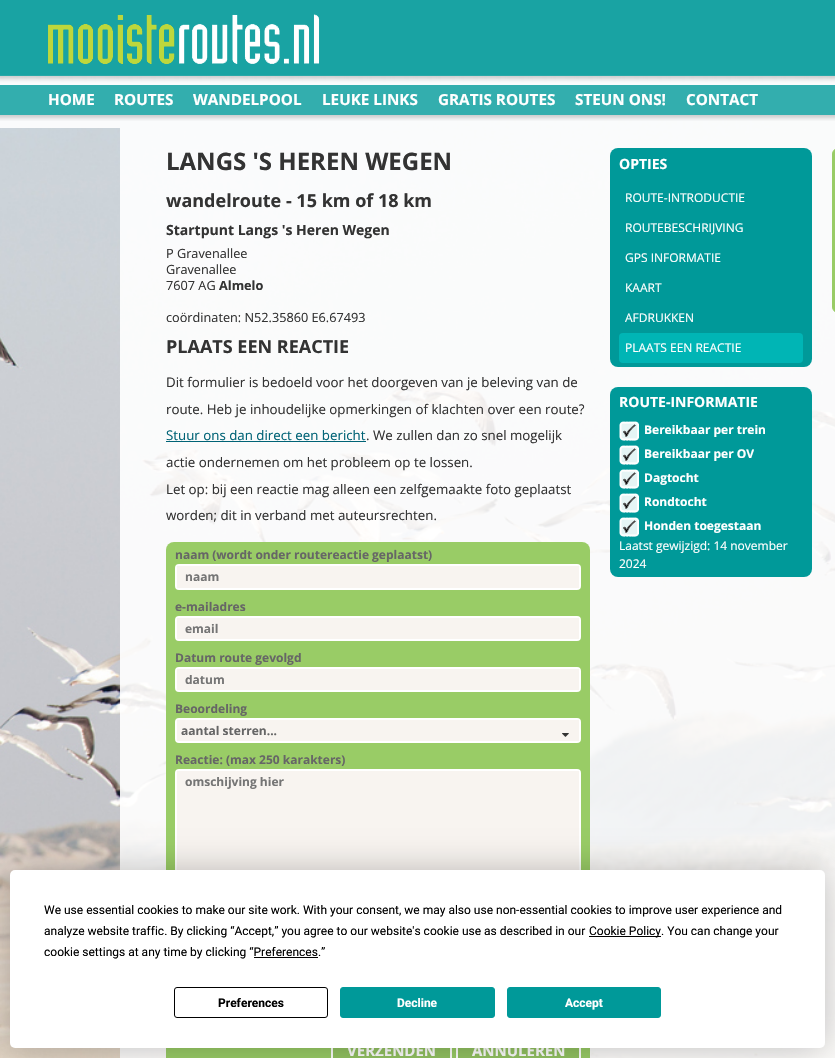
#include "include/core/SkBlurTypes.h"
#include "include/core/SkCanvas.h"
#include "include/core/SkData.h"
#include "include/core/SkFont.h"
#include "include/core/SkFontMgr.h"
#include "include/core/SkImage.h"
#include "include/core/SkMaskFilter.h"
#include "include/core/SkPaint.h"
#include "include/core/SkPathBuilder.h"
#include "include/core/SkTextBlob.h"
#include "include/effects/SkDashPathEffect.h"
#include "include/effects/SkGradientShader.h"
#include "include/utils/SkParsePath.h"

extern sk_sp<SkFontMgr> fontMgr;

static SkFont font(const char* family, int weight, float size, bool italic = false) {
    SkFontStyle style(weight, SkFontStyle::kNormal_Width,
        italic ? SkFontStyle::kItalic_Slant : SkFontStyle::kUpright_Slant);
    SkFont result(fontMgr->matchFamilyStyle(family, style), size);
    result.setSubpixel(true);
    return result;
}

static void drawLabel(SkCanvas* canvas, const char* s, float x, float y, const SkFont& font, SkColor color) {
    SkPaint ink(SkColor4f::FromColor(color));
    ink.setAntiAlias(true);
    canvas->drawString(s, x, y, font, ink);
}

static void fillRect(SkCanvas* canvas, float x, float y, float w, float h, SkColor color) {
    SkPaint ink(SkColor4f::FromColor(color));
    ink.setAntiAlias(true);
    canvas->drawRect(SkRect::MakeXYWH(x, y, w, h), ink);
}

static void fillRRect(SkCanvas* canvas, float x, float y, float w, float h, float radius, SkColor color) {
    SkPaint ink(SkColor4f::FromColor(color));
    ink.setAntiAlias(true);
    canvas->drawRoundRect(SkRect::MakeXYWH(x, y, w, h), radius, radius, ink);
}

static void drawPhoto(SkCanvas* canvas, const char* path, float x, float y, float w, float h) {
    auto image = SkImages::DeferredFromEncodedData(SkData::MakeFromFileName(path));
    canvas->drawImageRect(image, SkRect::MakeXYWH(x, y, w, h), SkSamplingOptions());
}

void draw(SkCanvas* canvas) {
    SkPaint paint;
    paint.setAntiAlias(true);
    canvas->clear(0xFFFFFFFF);
    drawPhoto(canvas, "assets/img1.png", 0, 0, 835, 1058);
    fillRect(canvas, 0, 0, 835, 128, 0xE6FFFFFF);
    drawPhoto(canvas, "assets/img3.png", 0, 0, 835, 121);
    drawPhoto(canvas, "assets/img2.png", 48, 14, 272, 50);
    SkFont font1 = font("Open Sans", 700, 15.25f);
    drawLabel(canvas, "HOME", 48, 105, font1, 0xFFFFFFFF);
    drawLabel(canvas, "ROUTES", 114, 105, font1, 0xFFFFFFFF);
    drawLabel(canvas, "WANDELPOOL", 193, 105, font1, 0xFFFFFFFF);
    drawLabel(canvas, "LEUKE LINKS", 322, 105, font1, 0xFFFFFFFF);
    drawLabel(canvas, "GRATIS ROUTES", 438, 105, font1, 0xFFFFFFFF);
    drawLabel(canvas, "STEUN ONS!", 575, 105, font1, 0xFFFFFFFF);
    drawLabel(canvas, "CONTACT", 686, 105, font1, 0xFFFFFFFF);
    fillRect(canvas, 120, 128, 715, 930, 0xE6FFFFFF);
    SkFont font2 = font("Open Sans", 700, 24);
    drawLabel(canvas, "LANGS 'S HEREN WEGEN", 166, 170, font2, 0xFF333333);
    SkFont font3 = font("Open Sans", 700, 18);
    drawLabel(canvas, "wandelroute - 15 km of 18 km", 166, 207, font3, 0xFF333333);
    SkFont font4 = font("Open Sans", 700, 14);
    drawLabel(canvas, "Startpunt Langs 's Heren Wegen", 166, 235, font4, 0xFF333333);
    SkFont font5 = font("Open Sans", 400, 12.7f);
    drawLabel(canvas, "P Gravenallee", 166, 258, font5, 0xFF333333);
    drawLabel(canvas, "Gravenallee", 166, 274, font5, 0xFF333333);
    drawLabel(canvas, "7607 AG", 166, 290, font5, 0xFF333333);
    SkFont font6 = font("Open Sans", 700, 12.7f);
    drawLabel(canvas, "Almelo", 219, 290, font6, 0xFF333333);
    drawLabel(canvas, "coördinaten: N52.35860 E6.67493", 166, 322, font5, 0xFF333333);
    drawLabel(canvas, "PLAATS EEN REACTIE", 166, 353, font3, 0xFF333333);
    SkFont font7 = font("Open Sans", 400, 13.3f);
    drawLabel(canvas, "Dit formulier is bedoeld voor het doorgeven van je beleving van de", 166, 387, font7, 0xFF333333);
    drawLabel(canvas, "route. Heb je inhoudelijke opmerkingen of klachten over een route?", 166, 414, font7, 0xFF333333);
    drawLabel(canvas, "Stuur ons dan direct een bericht", 166, 440, font7, 0xFF006376);
    drawLabel(canvas, ". We zullen dan zo snel mogelijk", 366, 440, font7, 0xFF333333);
    fillRect(canvas, 166, 441, 200, 1, 0xFF006376);
    drawLabel(canvas, "actie ondernemen om het probleem op te lossen.", 166, 467, font7, 0xFF333333);
    drawLabel(canvas, "Let op: bij een reactie mag alleen een zelfgemaakte foto geplaatst", 166, 494, font7, 0xFF333333);
    drawLabel(canvas, "worden; dit in verband met auteursrechten.", 166, 520, font7, 0xFF333333);
    fillRRect(canvas, 166, 542, 424, 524, 8, 0xFF99CC66);
    SkFont font8 = font("Open Sans", 700, 12);
    drawLabel(canvas, "naam (wordt onder routereactie geplaatst)", 175, 559, font8, 0xFF666666);
    paint.setStroke(true);
    paint.setStrokeWidth(2);
    paint.setColor(0xFFFFFFFF);
    canvas->drawRoundRect(SkRect::MakeXYWH(176, 565, 404, 24), 3, 3, paint);
    fillRect(canvas, 177, 566, 402, 22, 0xFFF8F4F0);
    drawLabel(canvas, "naam", 185, 581, font8, 0xFF757575);
    drawLabel(canvas, "e-mailadres", 175, 611, font8, 0xFF666666);
    canvas->drawRoundRect(SkRect::MakeXYWH(176, 617, 404, 23), 3, 3, paint);
    fillRect(canvas, 177, 618, 402, 21, 0xFFF8F4F0);
    drawLabel(canvas, "email", 185, 633, font8, 0xFF757575);
    drawLabel(canvas, "Datum route gevolgd", 175, 662, font8, 0xFF666666);
    canvas->drawRoundRect(SkRect::MakeXYWH(176, 668, 404, 23), 3, 3, paint);
    fillRect(canvas, 177, 669, 402, 21, 0xFFF8F4F0);
    drawLabel(canvas, "datum", 185, 684, font8, 0xFF757575);
    drawLabel(canvas, "Beoordeling", 175, 713, font8, 0xFF666666);
    canvas->drawRoundRect(SkRect::MakeXYWH(176, 719, 404, 23), 3, 3, paint);
    fillRect(canvas, 177, 720, 402, 21, 0xFFF8F4F0);
    drawLabel(canvas, "aantal sterren...", 181, 735, font8, 0xFF666666);
    drawPhoto(canvas, "assets/img4.png", 562, 733, 7, 4);
    drawLabel(canvas, "Reactie: (max 250 karakters)", 175, 764, font8, 0xFF666666);
    canvas->drawRoundRect(SkRect::MakeXYWH(176, 770, 404, 202), 3, 3, paint);
    fillRect(canvas, 177, 771, 402, 99, 0xFFF8F4F0);
    drawLabel(canvas, "omschijving hier", 185, 786, font8, 0xFF757575);
    fillRect(canvas, 333, 1048, 117, 10, 0xFF92C261);
    canvas->drawRect(SkRect::MakeXYWH(332, 1036, 119, 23), paint);
    SkFont font9 = font("Open Sans", 700, 15);
    drawLabel(canvas, "VERZENDEN", 347, 1056, font9, 0xFFFFFFFF);
    fillRect(canvas, 458, 1048, 121, 10, 0xFF92C261);
    canvas->drawRect(SkRect::MakeXYWH(457, 1036, 123, 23), paint);
    drawLabel(canvas, "ANNULEREN", 472, 1056, font9, 0xFFFFFFFF);
    fillRRect(canvas, 610, 148, 202, 219, 8, 0xFF009999);
    drawLabel(canvas, "OPTIES", 619, 169, font4, 0xFFFFFFFF);
    SkFont font10 = font("Open Sans", 400, 12);
    drawLabel(canvas, "ROUTE-INTRODUCTIE", 625, 202, font10, 0xFFFFFFFF);
    drawLabel(canvas, "ROUTEBESCHRIJVING", 625, 232, font10, 0xFFFFFFFF);
    drawLabel(canvas, "GPS INFORMATIE", 625, 262, font10, 0xFFFFFFFF);
    drawLabel(canvas, "KAART", 625, 292, font10, 0xFFFFFFFF);
    drawLabel(canvas, "AFDRUKKEN", 625, 322, font10, 0xFFFFFFFF);
    fillRRect(canvas, 619, 333, 184, 30, 4, 0xFF00B5B5);
    drawLabel(canvas, "PLAATS EEN REACTIE", 625, 352, font10, 0xFFFFFFFF);
    fillRRect(canvas, 610, 387, 202, 190, 8, 0xFF009999);
    drawLabel(canvas, "ROUTE-INFORMATIE", 619, 407, font4, 0xFFFFFFFF);
    drawPhoto(canvas, "assets/img5.png", 619, 421, 20, 20);
    drawLabel(canvas, "Bereikbaar per trein", 644, 434, font8, 0xFFFFFFFF);
    drawPhoto(canvas, "assets/img5.png", 619, 445, 20, 20);
    drawLabel(canvas, "Bereikbaar per OV", 644, 458, font8, 0xFFFFFFFF);
    drawPhoto(canvas, "assets/img5.png", 619, 469, 20, 20);
    drawLabel(canvas, "Dagtocht", 644, 482, font8, 0xFFFFFFFF);
    drawPhoto(canvas, "assets/img5.png", 619, 493, 20, 20);
    drawLabel(canvas, "Rondtocht", 644, 506, font8, 0xFFFFFFFF);
    drawPhoto(canvas, "assets/img5.png", 619, 517, 20, 20);
    drawLabel(canvas, "Honden toegestaan", 644, 530, font8, 0xFFFFFFFF);
    drawLabel(canvas, "Laatst gewijzigd: 14 november", 619, 550, font10, 0xFFFFFFFF);
    drawLabel(canvas, "2024", 619, 568, font10, 0xFFFFFFFF);
    paint.setStroke(false);
    paint.setColor(0xFF99CC66);
    canvas->drawRoundRect(SkRect::MakeXYWH(832.5f, 148.5f, 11, 164), 7.5f, 7.5f, paint);
    paint.setStroke(true);
    paint.setStrokeWidth(1);
    canvas->drawRoundRect(SkRect::MakeXYWH(832.5f, 148.5f, 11, 164), 7.5f, 7.5f, paint);
    paint.setStroke(false);
    paint.setColor(0x40000000);
    paint.setMaskFilter(SkMaskFilter::MakeBlur(kNormal_SkBlurStyle, 17.5f));
    canvas->drawRoundRect(SkRect::MakeXYWH(10, 870, 815, 178), 5, 5, paint);
    paint.setMaskFilter(nullptr);
    fillRRect(canvas, 10, 870, 815, 178, 5, 0xFFFFFFFF);
    SkFont font11 = font("Roboto", 400, 12);
    drawLabel(canvas, "We use essential cookies to make our site work. With your consent, we may also use non-essential cookies to improve user experience and", 44, 914, font11, 0xFF000000);
    drawLabel(canvas, "analyze website traffic. By clicking “Accept,” you agree to our website's cookie use as described in our", 44, 935, font11, 0xFF000000);
    fillRect(canvas, 589, 936, 72, 1, 0xFF000000);
    drawLabel(canvas, "Cookie Policy. You can change your", 589, 935, font11, 0xFF000000);
    drawLabel(canvas, "cookie settings at any time by clicking “Preferences.”", 44, 956, font11, 0xFF000000);
    fillRect(canvas, 254, 957, 64, 1, 0xFF000000);
    paint.setStroke(true);
    paint.setColor(0xFF000000);
    canvas->drawRoundRect(SkRect::MakeXYWH(174.5f, 987.5f, 153, 30), 2.5f, 2.5f, paint);
    SkFont font12 = font("Roboto", 700, 12);
    drawLabel(canvas, "Preferences", 218, 1007, font12, 0xFF000000);
    paint.setStroke(false);
    paint.setColor(0xFF009999);
    canvas->drawRoundRect(SkRect::MakeXYWH(340.5f, 987.5f, 154, 30), 2.5f, 2.5f, paint);
    paint.setStroke(true);
    canvas->drawRoundRect(SkRect::MakeXYWH(340.5f, 987.5f, 154, 30), 2.5f, 2.5f, paint);
    drawLabel(canvas, "Decline", 397, 1007, font12, 0xFFFFFFFF);
    paint.setStroke(false);
    canvas->drawRoundRect(SkRect::MakeXYWH(507.5f, 987.5f, 153, 30), 2.5f, 2.5f, paint);
    paint.setStroke(true);
    canvas->drawRoundRect(SkRect::MakeXYWH(507.5f, 987.5f, 153, 30), 2.5f, 2.5f, paint);
    drawLabel(canvas, "Accept", 565, 1007, font12, 0xFFFFFFFF);
}
